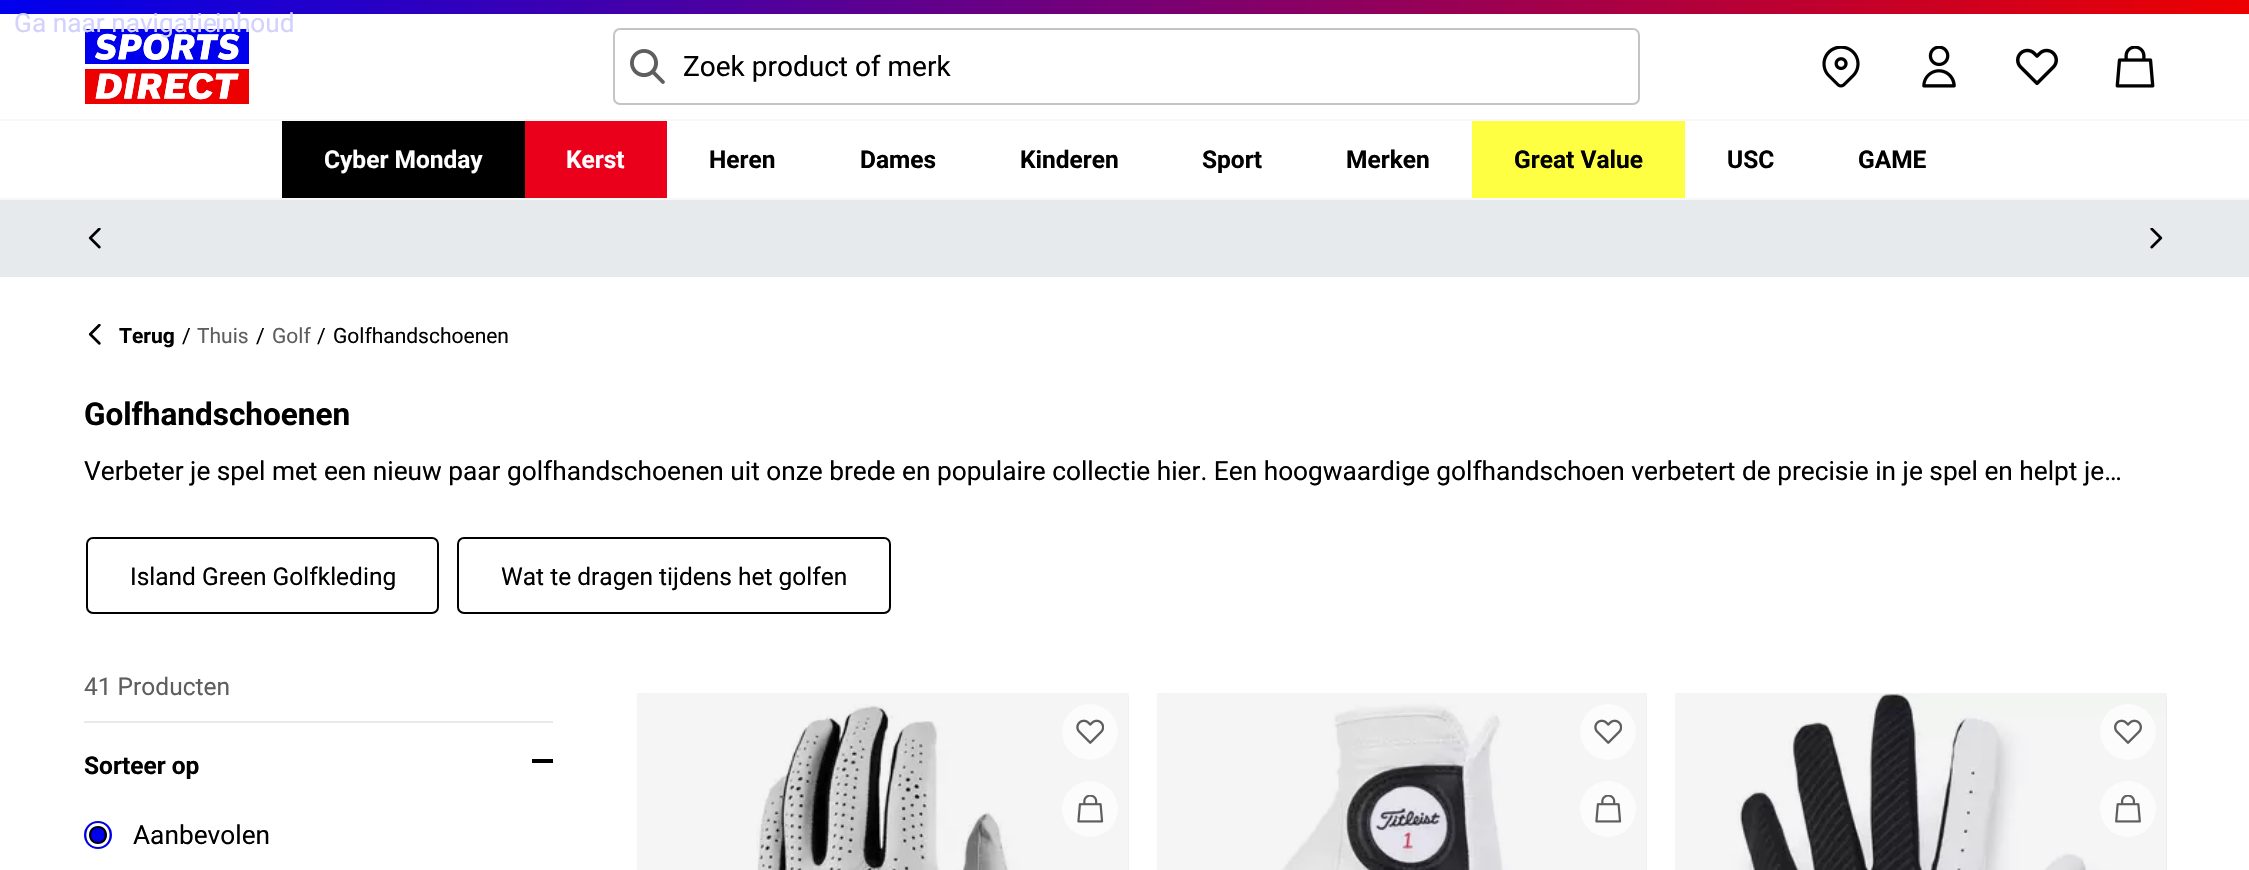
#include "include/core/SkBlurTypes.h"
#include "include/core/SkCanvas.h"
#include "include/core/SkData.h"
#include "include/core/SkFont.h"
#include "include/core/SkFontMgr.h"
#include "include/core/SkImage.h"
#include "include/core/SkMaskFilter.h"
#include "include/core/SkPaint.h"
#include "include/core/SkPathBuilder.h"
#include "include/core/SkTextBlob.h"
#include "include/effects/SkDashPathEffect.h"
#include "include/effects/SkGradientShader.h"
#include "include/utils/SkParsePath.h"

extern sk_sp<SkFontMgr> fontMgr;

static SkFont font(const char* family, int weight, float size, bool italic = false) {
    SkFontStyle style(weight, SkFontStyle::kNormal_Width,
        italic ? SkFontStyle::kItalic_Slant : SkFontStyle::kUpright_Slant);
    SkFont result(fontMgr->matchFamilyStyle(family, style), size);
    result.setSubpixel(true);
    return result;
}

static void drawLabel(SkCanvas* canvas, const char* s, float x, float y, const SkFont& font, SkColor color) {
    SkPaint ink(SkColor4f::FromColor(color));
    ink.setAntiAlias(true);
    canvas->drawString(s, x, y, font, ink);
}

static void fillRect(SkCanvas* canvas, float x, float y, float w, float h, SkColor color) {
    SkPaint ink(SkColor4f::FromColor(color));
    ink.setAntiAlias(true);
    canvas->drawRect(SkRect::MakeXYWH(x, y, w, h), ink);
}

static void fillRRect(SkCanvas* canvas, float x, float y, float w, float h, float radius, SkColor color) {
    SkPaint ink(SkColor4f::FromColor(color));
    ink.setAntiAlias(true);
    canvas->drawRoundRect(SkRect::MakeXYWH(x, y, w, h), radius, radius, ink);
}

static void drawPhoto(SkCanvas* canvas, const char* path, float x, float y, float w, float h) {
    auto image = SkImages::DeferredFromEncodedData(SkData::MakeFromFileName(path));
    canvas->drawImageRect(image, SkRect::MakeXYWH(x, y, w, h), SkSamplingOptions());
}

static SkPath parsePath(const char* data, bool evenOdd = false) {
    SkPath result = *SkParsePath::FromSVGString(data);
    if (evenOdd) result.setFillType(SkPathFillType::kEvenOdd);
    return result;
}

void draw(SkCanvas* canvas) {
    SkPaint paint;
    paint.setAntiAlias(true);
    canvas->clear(0xFFFFFFFF);
    drawPhoto(canvas, "assets/img1.png", 0, 0, 2249, 14);
    drawPhoto(canvas, "assets/img2.png", 85, 29, 164, 75);
    SkFont font1 = font("Roboto", 400, 26.25f);
    drawLabel(canvas, "Ga naar navigatie", 14, 32, font1, 0xFFD2D2FC);
    drawLabel(canvas, "inhoud", 215, 32, font1, 0xFFD2D2FC);
    paint.setStroke(true);
    paint.setStrokeWidth(2);
    paint.setColor(0xFFC4C4C4);
    canvas->drawRoundRect(SkRect::MakeXYWH(614, 29, 1025, 75), 6, 6, paint);
    drawPhoto(canvas, "assets/img3.png", 630, 49, 35, 35);
    SkFont font2 = font("Roboto", 400, 28);
    drawLabel(canvas, "Zoek product of merk", 683, 76, font2, 0xFF000000);
    drawPhoto(canvas, "assets/img4.png", 1822, 46, 38, 42);
    drawPhoto(canvas, "assets/img5.png", 1922, 46, 34, 42);
    drawPhoto(canvas, "assets/img6.png", 2016, 48, 42, 38);
    drawPhoto(canvas, "assets/img7.png", 2115, 46, 40, 42);
    fillRect(canvas, 0, 119, 2249, 2, 0xFFF8F8F8);
    fillRect(canvas, 0, 198, 2249, 2, 0xFFF8F8F8);
    fillRect(canvas, 282, 121, 243, 77, 0xFF000000);
    SkFont font3 = font("Roboto", 700, 24.5f);
    drawLabel(canvas, "Cyber Monday", 324, 168, font3, 0xFFFFFFFF);
    fillRect(canvas, 525, 121, 142, 77, 0xFFEB001B);
    drawLabel(canvas, "Kerst", 566, 168, font3, 0xFFFFFFFF);
    drawLabel(canvas, "Heren", 709, 168, font3, 0xFF000000);
    drawLabel(canvas, "Dames", 860, 168, font3, 0xFF000000);
    drawLabel(canvas, "Kinderen", 1020, 168, font3, 0xFF000000);
    drawLabel(canvas, "Sport", 1202, 168, font3, 0xFF000000);
    drawLabel(canvas, "Merken", 1346, 168, font3, 0xFF000000);
    fillRect(canvas, 1472, 121, 213, 77, 0xFFFEFF43);
    drawLabel(canvas, "Great Value", 1514, 168, font3, 0xFF000000);
    drawLabel(canvas, "USC", 1727, 168, font3, 0xFF000000);
    drawLabel(canvas, "GAME", 1858, 168, font3, 0xFF000000);
    fillRect(canvas, 0, 200, 2249, 77, 0xFFE7EAEC);
    drawPhoto(canvas, "assets/img8.png", 88, 228, 13, 21);
    drawPhoto(canvas, "assets/img9.png", 2150, 228, 13, 21);
    drawPhoto(canvas, "assets/img10.png", 88, 324, 13, 21);
    SkFont font4 = font("Roboto", 700, 21);
    drawLabel(canvas, "Terug", 119, 343, font4, 0xFF000000);
    SkFont font5 = font("Roboto", 400, 21);
    drawLabel(canvas, "/", 182, 343, font5, 0xFF000000);
    drawLabel(canvas, "Thuis", 197, 343, font5, 0xFF5E5E5E);
    drawLabel(canvas, "/", 256, 343, font5, 0xFF000000);
    drawLabel(canvas, "Golf", 272, 343, font5, 0xFF5E5E5E);
    drawLabel(canvas, "/", 317, 343, font5, 0xFF000000);
    drawLabel(canvas, "Golfhandschoenen", 333, 343, font5, 0xFF000000);
    SkFont font6 = font("Roboto", 700, 31.5f);
    drawLabel(canvas, "Golfhandschoenen", 84, 425, font6, 0xFF000000);
    drawLabel(canvas, "Verbeter je spel met een nieuw paar golfhandschoenen uit onze brede en populaire collectie hier. Een hoogwaardige golfhandschoen verbetert de precisie in je spel en helpt je…", 84, 480, font1, 0xFF000000);
    paint.setColor(0xFF000000);
    canvas->drawRoundRect(SkRect::MakeXYWH(87, 538, 351, 75), 6, 6, paint);
    SkFont font7 = font("Roboto", 400, 24.5f);
    drawLabel(canvas, "Island Green Golfkleding", 130, 585, font7, 0xFF000000);
    canvas->drawRoundRect(SkRect::MakeXYWH(458, 538, 432, 75), 6, 6, paint);
    drawLabel(canvas, "Wat te dragen tijdens het golfen", 501, 585, font7, 0xFF000000);
    fillRect(canvas, 84, 721, 469, 2, 0xFFE7EAEC);
    drawLabel(canvas, "41 Producten", 84, 695, font7, 0xFF5E5E5E);
    drawLabel(canvas, "Sorteer op", 84, 774, font3, 0xFF000000);
    fillRect(canvas, 532, 759, 21, 4, 0xFF000000);
    paint.setStroke(false);
    paint.setColor(0xFF0000ED);
    canvas->drawCircle(98, 835, 13, paint);
    paint.setStroke(true);
    canvas->drawCircle(98, 835, 13, paint);
    paint.setStroke(false);
    paint.setColor(0xFF000000);
    canvas->drawPath(parsePath("M98 823C82.5 823 82.5 847 98 847C113.5 847 113.5 823 98 823ZM98 828C89 828 89 842 98 842C107 842 107 828 98 828Z", true), paint);
    paint.setColor(0xFFFFFFFF);
    canvas->drawPath(parsePath("M98 823C82.5 823 82.5 847 98 847C113.5 847 113.5 823 98 823ZM98 826C86 826 86 844 98 844C110 844 110 826 98 826Z", true), paint);
    drawLabel(canvas, "Aanbevolen", 133, 844, font1, 0xFF000000);
    fillRRect(canvas, 637, 693, 492, 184, 7, 0xFFF5F5F5);
    drawPhoto(canvas, "assets/img11.png", 637, 693, 492, 177);
    fillRect(canvas, 637, 693, 492, 177, 0x0A000000);
    paint.setColor(0xFFFCFCFC);
    canvas->drawCircle(1090, 732, 28, paint);
    drawPhoto(canvas, "assets/img12.png", 1076, 719, 28, 25);
    canvas->drawCircle(1090, 809, 28, paint);
    drawPhoto(canvas, "assets/img13.png", 1077, 795, 27, 28);
    fillRRect(canvas, 1157, 693, 490, 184, 7, 0xFFF5F5F5);
    drawPhoto(canvas, "assets/img14.png", 1157, 693, 490, 177);
    fillRect(canvas, 1157, 693, 490, 177, 0x0A000000);
    canvas->drawCircle(1608, 732, 28, paint);
    drawPhoto(canvas, "assets/img12.png", 1594, 719, 28, 25);
    canvas->drawCircle(1608, 809, 28, paint);
    drawPhoto(canvas, "assets/img13.png", 1595, 795, 27, 28);
    fillRRect(canvas, 1675, 693, 492, 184, 7, 0xFFF5F5F5);
    drawPhoto(canvas, "assets/img15.png", 1675, 693, 491, 177);
    fillRect(canvas, 1675, 693, 492, 177, 0x0A000000);
    canvas->drawCircle(2128, 732, 28, paint);
    drawPhoto(canvas, "assets/img16.png", 2114, 719, 28, 25);
    canvas->drawCircle(2128, 809, 28, paint);
    drawPhoto(canvas, "assets/img17.png", 2115, 795, 26, 28);
}
